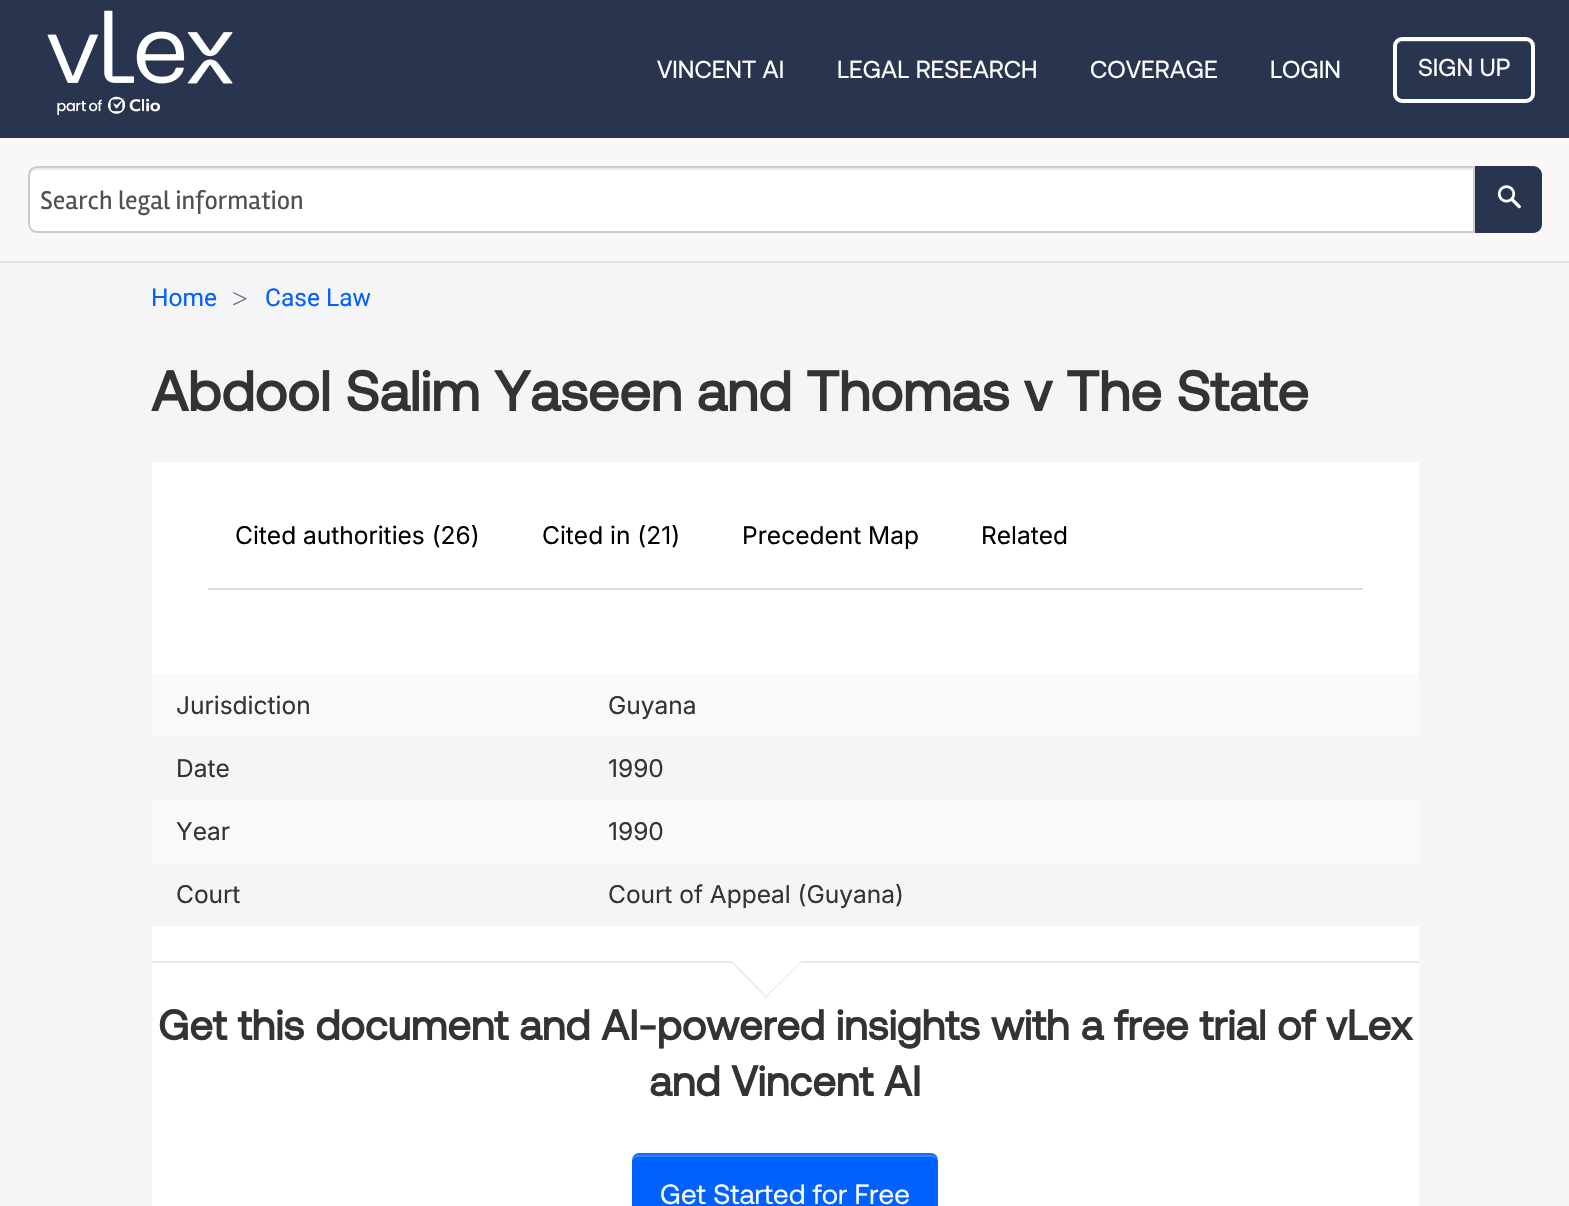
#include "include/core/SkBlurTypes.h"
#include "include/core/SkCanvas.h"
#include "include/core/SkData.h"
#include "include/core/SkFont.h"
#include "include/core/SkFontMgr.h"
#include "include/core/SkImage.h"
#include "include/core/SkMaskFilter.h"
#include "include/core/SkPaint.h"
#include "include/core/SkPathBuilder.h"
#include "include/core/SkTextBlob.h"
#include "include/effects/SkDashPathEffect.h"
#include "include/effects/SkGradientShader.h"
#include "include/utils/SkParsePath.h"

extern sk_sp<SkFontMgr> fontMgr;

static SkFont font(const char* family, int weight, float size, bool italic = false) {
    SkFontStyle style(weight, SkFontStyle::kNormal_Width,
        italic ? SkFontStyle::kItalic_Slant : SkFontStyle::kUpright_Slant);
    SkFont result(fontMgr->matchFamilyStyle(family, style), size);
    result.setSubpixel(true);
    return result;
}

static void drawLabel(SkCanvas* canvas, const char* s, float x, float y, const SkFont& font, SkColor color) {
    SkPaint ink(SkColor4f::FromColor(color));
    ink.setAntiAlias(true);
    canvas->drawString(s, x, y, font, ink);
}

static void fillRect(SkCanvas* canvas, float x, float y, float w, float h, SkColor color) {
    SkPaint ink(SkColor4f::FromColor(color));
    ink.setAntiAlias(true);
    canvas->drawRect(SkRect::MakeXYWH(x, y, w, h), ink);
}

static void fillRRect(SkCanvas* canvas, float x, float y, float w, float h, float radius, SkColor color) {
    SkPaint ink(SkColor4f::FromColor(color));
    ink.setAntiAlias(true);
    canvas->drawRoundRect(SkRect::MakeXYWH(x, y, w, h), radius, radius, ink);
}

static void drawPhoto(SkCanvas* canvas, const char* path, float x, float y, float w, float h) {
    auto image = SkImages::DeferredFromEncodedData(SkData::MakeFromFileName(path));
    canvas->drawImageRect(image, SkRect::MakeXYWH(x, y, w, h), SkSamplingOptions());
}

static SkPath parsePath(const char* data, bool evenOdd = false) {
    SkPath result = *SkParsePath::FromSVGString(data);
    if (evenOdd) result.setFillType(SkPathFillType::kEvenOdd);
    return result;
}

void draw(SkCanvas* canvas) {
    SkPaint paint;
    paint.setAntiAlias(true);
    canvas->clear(0xFFF5F5F7);
    fillRect(canvas, 0, 0, 1569, 138, 0xFF29354E);
    drawPhoto(canvas, "assets/img1.png", 47, 10, 186, 105);
    SkFont font1 = font("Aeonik", 400, 24.5f);
    drawLabel(canvas, "VINCENT AI", 657, 78, font1, 0xFFFFFFFF);
    drawLabel(canvas, "LEGAL RESEARCH", 837, 78, font1, 0xFFFFFFFF);
    drawLabel(canvas, "COVERAGE", 1090, 78, font1, 0xFFFFFFFF);
    drawLabel(canvas, "LOGIN", 1270, 78, font1, 0xFFFFFFFF);
    paint.setColor(0xFF545D71);
    canvas->drawPath(parsePath("M1402 42H1526C1529 42 1531 44 1531 47V45C1531 42 1529 40 1526 40H1402C1400 40 1397 42 1397 44C1398 43 1400 42 1402 42Z"), paint);
    paint.setStroke(true);
    paint.setStrokeWidth(4);
    paint.setColor(0xFFFFFFFF);
    canvas->drawRoundRect(SkRect::MakeXYWH(1395, 39, 138, 62), 7, 7, paint);
    drawLabel(canvas, "SIGN UP", 1418, 76, font1, 0xFFFFFFFF);
    fillRect(canvas, 0, 138, 1569, 123, 0xFFF9F7F7);
    fillRect(canvas, 0, 261, 1569, 2, 0xFFE1E1E1);
    paint.setStroke(false);
    canvas->drawPath(parsePath("M37 166H1475V233H37C32 233 28 229 28 224V175C28 170 32 166 37 166Z"), paint);
    paint.setColor(0xFFECECEC);
    canvas->drawPath(parsePath("M37 170H1474V168H37C33 168 30 171 30 175V177C30 173 33 170 37 170Z"), paint);
    paint.setStroke(true);
    paint.setStrokeWidth(2);
    paint.setColor(0xFFCCCCCC);
    canvas->drawPath(parsePath("M37 167H1474V232H37C32.5 232 29 228.5 29 224V175C29 170.5 32.5 167 37 167Z"), paint);
    SkFont font2 = font("Rambla", 400, 26.25f);
    drawLabel(canvas, "Search legal information", 40, 209, font2, 0xFF505050);
    paint.setStroke(false);
    paint.setColor(0xFF29354E);
    canvas->drawPath(parsePath("M1475 166H1533C1538 166 1542 170 1542 175V224C1542 229 1538 233 1533 233H1475Z"), paint);
    drawPhoto(canvas, "assets/img2.png", 1497, 185, 24, 24);
    SkFont font3 = font("Roboto", 400, 24.5f);
    drawLabel(canvas, "Home", 151, 306, font3, 0xFF0161FF);
    SkFont font4 = font("Liberation Serif", 400, 28);
    drawLabel(canvas, ">", 232, 308, font4, 0xFF71717A);
    drawLabel(canvas, "Case Law", 265, 306, font3, 0xFF0161FF);
    SkFont font5 = font("Aeonik", 700, 56);
    drawLabel(canvas, "Abdool Salim Yaseen and Thomas v The State", 151, 411, font5, 0xFF333333);
    fillRect(canvas, 152, 462, 1267, 744, 0xFFFFFFFF);
    fillRect(canvas, 208, 588, 1155, 2, 0xFFDDDDDD);
    SkFont font6 = font("Inter", 400, 24.5f);
    drawLabel(canvas, "Cited authorities (26)", 235, 544, font6, 0xFF000000);
    drawLabel(canvas, "Cited in (21)", 542, 544, font6, 0xFF000000);
    drawLabel(canvas, "Precedent Map", 742, 544, font6, 0xFF000000);
    drawLabel(canvas, "Related", 981, 544, font6, 0xFF000000);
    fillRect(canvas, 152, 674, 1267, 63, 0xFFF9F9F9);
    drawLabel(canvas, "Jurisdiction", 176, 714, font6, 0xFF333333);
    drawLabel(canvas, "Guyana", 608, 714, font6, 0xFF333333);
    fillRect(canvas, 152, 737, 1267, 63, 0xFFF5F5F7);
    drawLabel(canvas, "Date", 176, 777, font6, 0xFF333333);
    drawLabel(canvas, "1990", 608, 777, font6, 0xFF333333);
    fillRect(canvas, 152, 800, 1267, 63, 0xFFF9F9F9);
    drawLabel(canvas, "Year", 176, 840, font6, 0xFF333333);
    drawLabel(canvas, "1990", 608, 840, font6, 0xFF333333);
    fillRect(canvas, 152, 863, 1267, 63, 0xFFF5F5F7);
    drawLabel(canvas, "Court", 176, 903, font6, 0xFF333333);
    drawLabel(canvas, "Court of Appeal (Guyana)", 608, 903, font6, 0xFF333333);
    fillRect(canvas, 152, 961, 1267, 2, 0xFFE7E7E7);
    paint.setColor(0xFFE7E7E7);
    canvas->drawPath(parsePath("M730 961H803L766 998Z"), paint);
    paint.setColor(0xFFFFFFFF);
    canvas->drawPath(parsePath("M732 961H802L766 996Z"), paint);
    SkFont font7 = font("Aeonik", 700, 42);
    drawLabel(canvas, "Get this document and AI-powered insights with a free trial of vLex", 158, 1040, font7, 0xFF333333);
    drawLabel(canvas, "and Vincent AI", 649, 1096, font7, 0xFF333333);
    fillRRect(canvas, 632, 1153, 306, 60, 7, 0xFF0161FF);
    paint.setColor(0x33FFFFFF);
    canvas->drawPath(parsePath("M639 1157H931C935 1157 938 1159 938 1162V1160C938 1157 935 1155 931 1155H639C635 1155 632 1157 632 1160V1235V1162C632 1159 635 1157 639 1157Z"), paint);
    paint.setColor(0x1AA8CBFF);
    canvas->drawPath(parsePath("M639 1155C635 1155 632 1157 632 1160C632 1157 634 1154 637 1153H933C936 1154 938 1157 938 1160C938 1157 935 1155 931 1155Z"), paint);
    SkFont font8 = font("Aeonik", 400, 28);
    drawLabel(canvas, "Get Started for Free", 660, 1204, font8, 0xFFFFFFFF);
}
